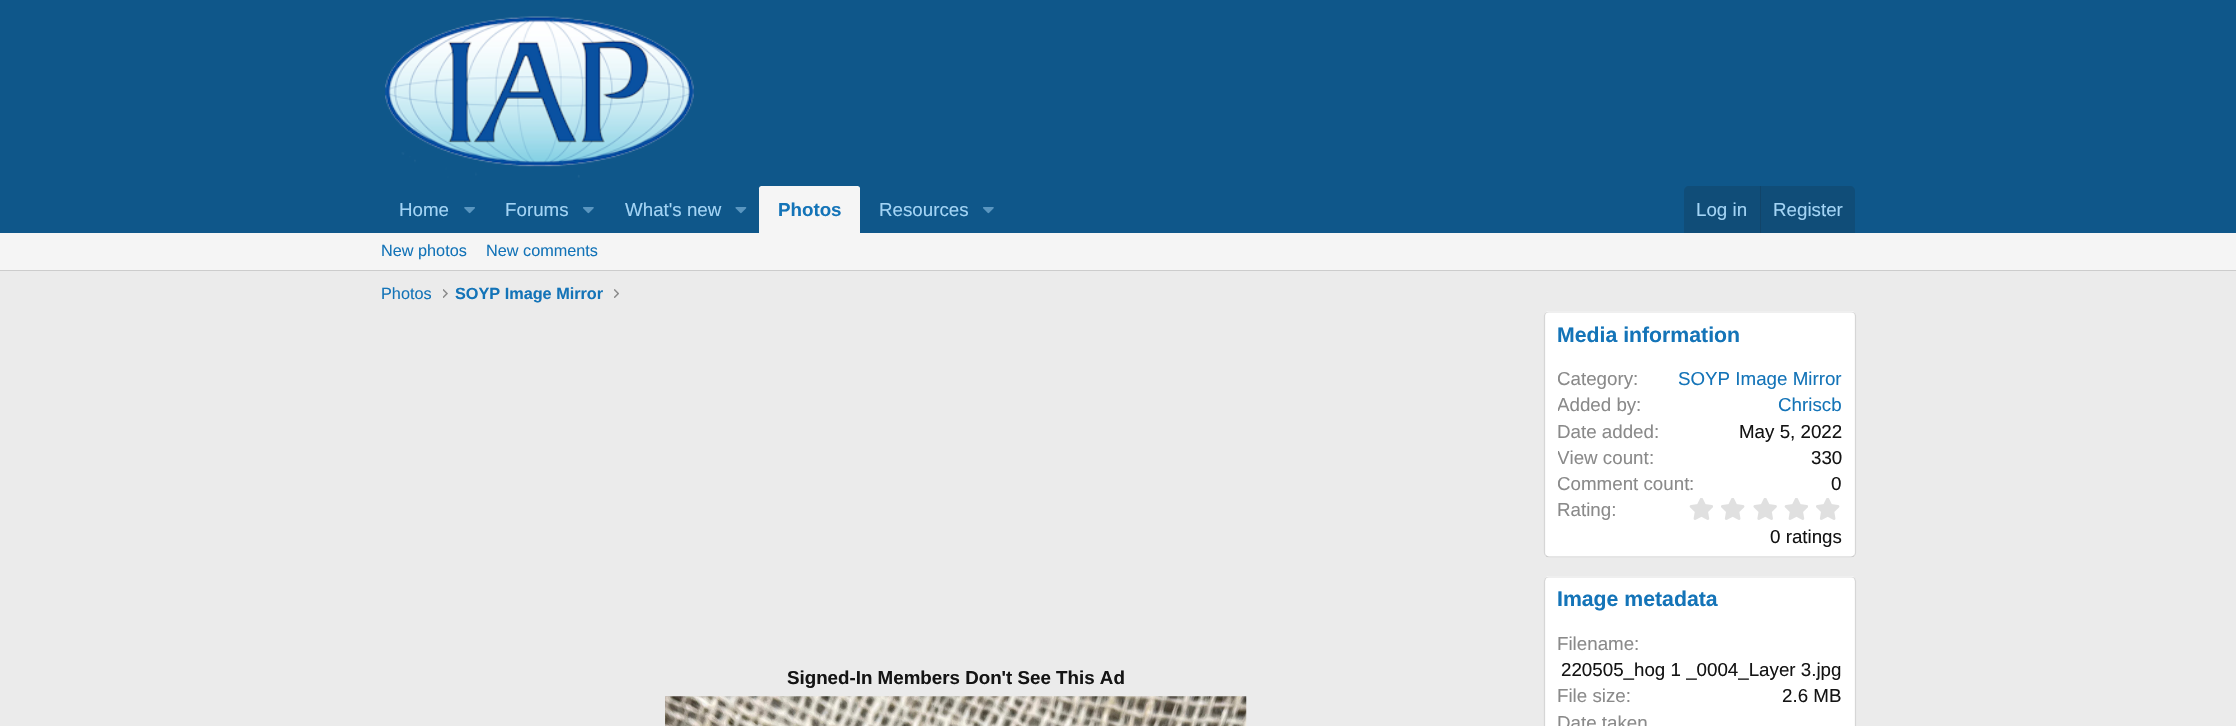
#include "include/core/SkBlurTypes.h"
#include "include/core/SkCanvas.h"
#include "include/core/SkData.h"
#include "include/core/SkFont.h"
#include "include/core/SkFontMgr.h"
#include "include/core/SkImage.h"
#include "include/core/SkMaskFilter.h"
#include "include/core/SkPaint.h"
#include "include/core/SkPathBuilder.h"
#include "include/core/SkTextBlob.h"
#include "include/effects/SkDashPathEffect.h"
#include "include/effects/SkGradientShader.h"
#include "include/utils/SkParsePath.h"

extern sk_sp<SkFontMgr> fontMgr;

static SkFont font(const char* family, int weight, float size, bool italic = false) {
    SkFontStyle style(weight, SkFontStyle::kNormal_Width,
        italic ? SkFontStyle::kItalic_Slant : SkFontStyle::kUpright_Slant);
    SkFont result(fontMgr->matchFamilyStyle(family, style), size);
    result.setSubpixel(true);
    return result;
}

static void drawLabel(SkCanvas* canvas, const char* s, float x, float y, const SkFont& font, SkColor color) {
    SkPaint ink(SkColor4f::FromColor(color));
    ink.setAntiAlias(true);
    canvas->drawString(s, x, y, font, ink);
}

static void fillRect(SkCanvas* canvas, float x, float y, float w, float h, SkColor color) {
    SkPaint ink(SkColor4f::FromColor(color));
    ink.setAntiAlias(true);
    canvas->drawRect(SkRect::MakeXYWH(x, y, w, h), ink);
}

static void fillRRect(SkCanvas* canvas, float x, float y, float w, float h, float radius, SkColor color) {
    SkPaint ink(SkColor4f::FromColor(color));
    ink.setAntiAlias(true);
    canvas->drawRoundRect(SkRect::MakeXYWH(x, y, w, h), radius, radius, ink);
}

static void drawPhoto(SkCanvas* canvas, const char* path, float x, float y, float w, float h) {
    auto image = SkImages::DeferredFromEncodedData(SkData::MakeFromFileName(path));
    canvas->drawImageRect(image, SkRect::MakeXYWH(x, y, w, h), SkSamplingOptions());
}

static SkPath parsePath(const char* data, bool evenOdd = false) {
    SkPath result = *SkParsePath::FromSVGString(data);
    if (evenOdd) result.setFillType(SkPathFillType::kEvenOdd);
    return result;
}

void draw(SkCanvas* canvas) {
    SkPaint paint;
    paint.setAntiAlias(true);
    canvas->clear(0xFFEBEBEB);
    fillRect(canvas, 0, 0, 2236, 233, 0xFF0F578A);
    drawPhoto(canvas, "assets/img1.png", 385, 16, 309, 162);
    SkFont font1 = font("Liberation Sans", 400, 18.75f);
    drawLabel(canvas, "Home", 399, 216, font1, 0xFFA3D4F5);
    drawPhoto(canvas, "assets/img2.png", 464, 207, 11, 7);
    drawLabel(canvas, "Forums", 505, 216, font1, 0xFFA3D4F5);
    drawPhoto(canvas, "assets/img3.png", 583, 207, 11, 7);
    drawLabel(canvas, "What's new", 625, 216, font1, 0xFFA3D4F5);
    drawPhoto(canvas, "assets/img4.png", 735, 207, 12, 7);
    paint.setColor(0xFFF5F5F5);
    canvas->drawPath(parsePath("M761.5 186H857.5C859 186 860 187 860 188.5V233H759V188.5C759 187 760 186 761.5 186Z"), paint);
    SkFont font2 = font("Liberation Sans", 700, 18.75f);
    drawLabel(canvas, "Photos", 778, 216, font2, 0xFF1474B8);
    drawLabel(canvas, "Resources", 879, 216, font1, 0xFFA3D4F5);
    drawPhoto(canvas, "assets/img3.png", 983, 207, 11, 7);
    paint.setColor(0xFF104D78);
    canvas->drawPath(parsePath("M1689 186H1850C1853 186 1855 188 1855 191V233H1684V191C1684 188 1686 186 1689 186Z"), paint);
    drawLabel(canvas, "Log in", 1696, 216, font1, 0xFFA3D4F5);
    fillRect(canvas, 1760, 186, 1, 47, 0xFF114469);
    drawLabel(canvas, "Register", 1773, 216, font1, 0xFFA3D4F5);
    fillRect(canvas, 0, 233, 2236, 37, 0xFFF5F5F5);
    fillRect(canvas, 0, 270, 2236, 1, 0xFFCCCCCC);
    SkFont font3 = font("Liberation Sans", 400, 16.25f);
    drawLabel(canvas, "New photos", 381, 256, font3, 0xFF1474B8);
    drawLabel(canvas, "New comments", 486, 256, font3, 0xFF1474B8);
    drawLabel(canvas, "Photos", 381, 299, font3, 0xFF1474B8);
    drawPhoto(canvas, "assets/img5.png", 443, 289, 5, 9);
    SkFont font4 = font("Liberation Sans", 700, 16.25f);
    drawLabel(canvas, "SOYP Image Mirror", 455, 299, font4, 0xFF1474B8);
    drawPhoto(canvas, "assets/img6.png", 614, 289, 5, 9);
    drawLabel(canvas, "Signed-In Members Don't See This Ad", 787, 684, font2, 0xFF141414);
    drawPhoto(canvas, "assets/img7.png", 665, 696, 582, 30);
    fillRRect(canvas, 1544, 311, 312, 247, 5, 0xFFFFFFFF);
    paint.setStroke(true);
    paint.setStrokeWidth(1.2f);
    paint.setColor(0xFFE0E0E0);
    canvas->drawPath(parsePath("M1545.5 313C1546.5 312.5 1547.5 312 1549 312H1851C1852.5 312 1853.5 312.5 1854.5 313"), paint);
    paint.setColor(0xFFD6D6D6);
    canvas->drawPath(parsePath("M1854.5 313C1855 314 1855.5 315 1855.5 316V552.5C1855.5 553.5 1855 555 1854.5 555.5"), paint);
    paint.setColor(0xFFCCCCCC);
    canvas->drawPath(parsePath("M1854.5 555.5C1853.5 556.5 1852.5 557 1851 557H1549C1547.5 557 1546.5 556.5 1545.5 555.5"), paint);
    paint.setColor(0xFFD6D6D6);
    canvas->drawPath(parsePath("M1545.5 555.5C1545 555 1544.5 553.5 1544.5 552.5V316C1544.5 315 1545 314 1545.5 313"), paint);
    SkFont font5 = font("Liberation Sans", 700, 21.25f);
    drawLabel(canvas, "Media information", 1557, 342, font5, 0xFF1474B8);
    canvas->save();
    canvas->clipRect(SkRect::MakeXYWH(1558, 365, 285, 26));
    drawLabel(canvas, "Category", 1557, 385, font1, 0xFF8A8A8A);
    canvas->restore();
    drawLabel(canvas, ":", 1633, 385, font1, 0xFF8A8A8A);
    drawLabel(canvas, "SOYP Image Mirror", 1678, 385, font1, 0xFF1474B8);
    canvas->save();
    canvas->clipRect(SkRect::MakeXYWH(1558, 391, 285, 27));
    drawLabel(canvas, "Added by", 1557, 411, font1, 0xFF8A8A8A);
    canvas->restore();
    drawLabel(canvas, ":", 1636, 411, font1, 0xFF8A8A8A);
    drawLabel(canvas, "Chriscb", 1778, 411, font1, 0xFF1474B8);
    drawLabel(canvas, "Date added:", 1557, 438, font1, 0xFF8A8A8A);
    drawLabel(canvas, "May 5, 2022", 1739, 438, font1, 0xFF141414);
    canvas->save();
    canvas->clipRect(SkRect::MakeXYWH(1558, 444, 285, 26));
    drawLabel(canvas, "View count", 1557, 464, font1, 0xFF8A8A8A);
    canvas->restore();
    drawLabel(canvas, ":", 1649, 464, font1, 0xFF8A8A8A);
    drawLabel(canvas, "330", 1811, 464, font1, 0xFF141414);
    canvas->save();
    canvas->clipRect(SkRect::MakeXYWH(1558, 470, 285, 26));
    drawLabel(canvas, "Comment count", 1557, 490, font1, 0xFF8A8A8A);
    canvas->restore();
    drawLabel(canvas, ":", 1689, 490, font1, 0xFF8A8A8A);
    drawLabel(canvas, "0", 1831, 490, font1, 0xFF141414);
    drawLabel(canvas, "Rating:", 1557, 516, font1, 0xFF8A8A8A);
    drawPhoto(canvas, "assets/img8.png", 1689, 498, 24, 22);
    drawPhoto(canvas, "assets/img9.png", 1721, 498, 24, 22);
    drawPhoto(canvas, "assets/img10.png", 1753, 498, 24, 22);
    drawPhoto(canvas, "assets/img8.png", 1784, 498, 24, 22);
    drawPhoto(canvas, "assets/img9.png", 1816, 498, 24, 22);
    drawLabel(canvas, "0 ratings", 1770, 543, font1, 0xFF141414);
    fillRRect(canvas, 1544, 576, 312, 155, 5, 0xFFFFFFFF);
    paint.setColor(0xFFE0E0E0);
    canvas->drawPath(parsePath("M1545.5 578C1546.5 577.5 1547.5 577 1549 577H1851C1852.5 577 1853.5 577.5 1854.5 578"), paint);
    paint.setColor(0xFFD6D6D6);
    canvas->drawPath(parsePath("M1854.5 578L1855.5 581V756V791L1854.5 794.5"), paint);
    canvas->drawPath(parsePath("M1545.5 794.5L1544.5 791V581L1545.5 578"), paint);
    drawLabel(canvas, "Image metadata", 1557, 606, font5, 0xFF1474B8);
    drawLabel(canvas, "Filename:", 1557, 650, font1, 0xFF8A8A8A);
    drawLabel(canvas, "220505_hog 1 _0004_Layer 3.jpg", 1561, 676, font1, 0xFF141414);
    drawLabel(canvas, "File size:", 1557, 702, font1, 0xFF8A8A8A);
    drawLabel(canvas, "2.6 MB", 1782, 702, font1, 0xFF141414);
    drawLabel(canvas, "Date taken", 1557, 729, font1, 0xFF8A8A8A);
}
